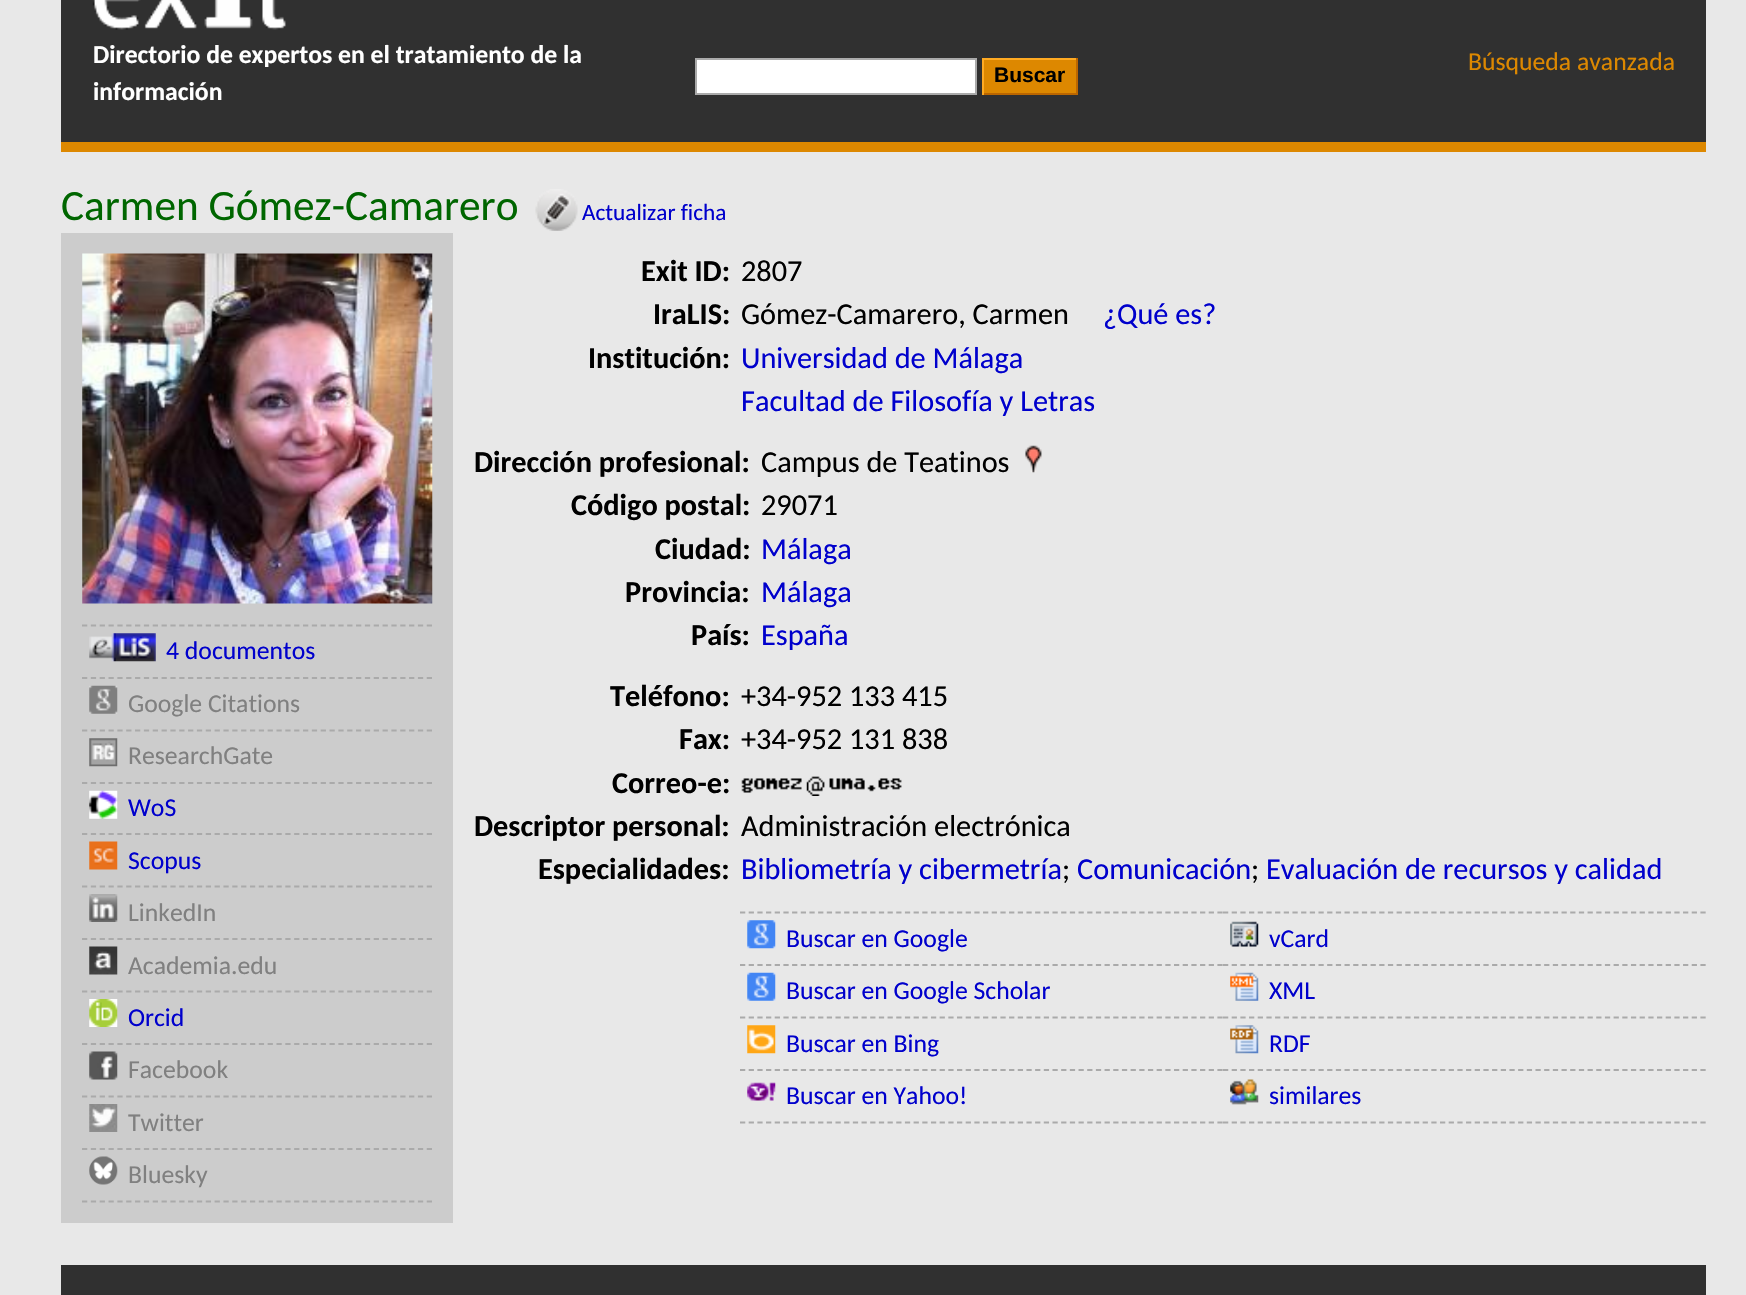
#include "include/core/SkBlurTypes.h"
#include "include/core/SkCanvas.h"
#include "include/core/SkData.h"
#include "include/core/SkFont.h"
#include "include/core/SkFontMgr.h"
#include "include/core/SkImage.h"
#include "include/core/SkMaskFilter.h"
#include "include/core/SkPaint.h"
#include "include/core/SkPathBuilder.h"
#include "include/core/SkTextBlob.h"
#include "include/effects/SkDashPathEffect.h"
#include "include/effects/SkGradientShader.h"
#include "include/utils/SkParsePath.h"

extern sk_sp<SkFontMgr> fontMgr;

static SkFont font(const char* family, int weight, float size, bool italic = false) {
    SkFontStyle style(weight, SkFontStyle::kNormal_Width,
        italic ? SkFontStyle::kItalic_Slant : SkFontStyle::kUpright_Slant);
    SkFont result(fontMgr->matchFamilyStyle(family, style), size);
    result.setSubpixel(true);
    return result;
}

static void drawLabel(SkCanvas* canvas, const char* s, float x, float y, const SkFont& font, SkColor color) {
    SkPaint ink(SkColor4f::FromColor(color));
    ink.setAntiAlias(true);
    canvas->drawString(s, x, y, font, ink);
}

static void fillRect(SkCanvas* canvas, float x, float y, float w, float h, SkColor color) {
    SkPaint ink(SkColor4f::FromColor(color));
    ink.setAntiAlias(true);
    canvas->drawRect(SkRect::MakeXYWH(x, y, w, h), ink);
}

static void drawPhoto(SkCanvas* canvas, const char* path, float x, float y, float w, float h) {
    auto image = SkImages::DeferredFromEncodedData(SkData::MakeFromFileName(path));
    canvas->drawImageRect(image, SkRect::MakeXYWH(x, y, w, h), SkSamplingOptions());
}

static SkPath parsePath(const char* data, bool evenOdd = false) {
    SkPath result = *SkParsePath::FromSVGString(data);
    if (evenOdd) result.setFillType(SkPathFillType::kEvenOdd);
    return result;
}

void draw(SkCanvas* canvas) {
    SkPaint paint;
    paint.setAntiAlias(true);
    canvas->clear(0xFFE8E8E8);
    fillRect(canvas, 61, 0, 1645, 142, 0xFF303030);
    fillRect(canvas, 61, 142, 1645, 10, 0xFFDD8800);
    drawPhoto(canvas, "assets/img1.png", 92, 0, 194, 30);
    SkFont font1 = font("Carlito", 700, 25.7f);
    drawLabel(canvas, "Directorio de expertos en el tratamiento de la", 93, 63, font1, 0xFFFFFFFF);
    drawLabel(canvas, "información", 93, 100, font1, 0xFFFFFFFF);
    paint.setColor(0xFFFFFFFF);
    canvas->drawRect(SkRect::MakeXYWH(696, 59, 280, 35), paint);
    paint.setStroke(true);
    paint.setStrokeWidth(2);
    paint.setColor(0xFFAAAAAA);
    canvas->drawRect(SkRect::MakeXYWH(696, 59, 280, 35), paint);
    fillRect(canvas, 984, 60, 92, 33, 0xFFDD8800);
    fillRect(canvas, 982, 58, 96, 2, 0xFFFFAA22);
    fillRect(canvas, 1076, 58, 2, 37, 0xFFBB6600);
    fillRect(canvas, 982, 93, 96, 2, 0xFFBB6600);
    fillRect(canvas, 982, 58, 2, 37, 0xFFFFAA22);
    SkFont font2 = font("Liberation Sans", 700, 21);
    drawLabel(canvas, "Buscar", 994, 82, font2, 0xFF000000);
    SkFont font3 = font("Carlito", 400, 25.7f);
    drawLabel(canvas, "Búsqueda avanzada", 1468, 70, font3, 0xFFDD8800);
    SkFont font4 = font("Carlito", 400, 43.25f);
    drawLabel(canvas, "Carmen Gómez-Camarero", 61, 220, font4, 0xFF006600);
    drawPhoto(canvas, "assets/img2.png", 535, 189, 43, 42);
    SkFont font5 = font("Carlito", 400, 23.25f);
    drawLabel(canvas, "Actualizar ficha", 582, 220, font5, 0xFF0000CC);
    fillRect(canvas, 61, 233, 392, 990, 0xFFCCCCCC);
    drawPhoto(canvas, "assets/img3.png", 82, 253, 351, 351);
    paint.setStrokeWidth(1.8f);
    paint.setPathEffect(SkDashPathEffect::Make({{5.25f, 3.59f}}, 0));
    canvas->drawPath(parsePath("M82 1201.5H432"), paint);
    paint.setPathEffect(nullptr);
    paint.setPathEffect(SkDashPathEffect::Make({{5.25f, 3.59f}}, 0));
    canvas->drawPath(parsePath("M82 625.5H432"), paint);
    paint.setPathEffect(nullptr);
    drawPhoto(canvas, "assets/img4.png", 89, 633, 67, 29);
    drawLabel(canvas, "4 documentos", 166, 659, font3, 0xFF0000CC);
    paint.setPathEffect(SkDashPathEffect::Make({{5.25f, 3.59f}}, 0));
    canvas->drawPath(parsePath("M82 678H432"), paint);
    paint.setPathEffect(nullptr);
    drawPhoto(canvas, "assets/img5.png", 89, 685, 29, 29);
    drawLabel(canvas, "Google Citations", 128, 712, font3, 0xFF808080);
    paint.setPathEffect(SkDashPathEffect::Make({{5.25f, 3.59f}}, 0));
    canvas->drawPath(parsePath("M82 730.5H432"), paint);
    paint.setPathEffect(nullptr);
    drawPhoto(canvas, "assets/img6.png", 89, 738, 29, 29);
    drawLabel(canvas, "ResearchGate", 128, 764, font3, 0xFF808080);
    paint.setPathEffect(SkDashPathEffect::Make({{5.25f, 3.59f}}, 0));
    canvas->drawPath(parsePath("M82 783H432"), paint);
    paint.setPathEffect(nullptr);
    drawPhoto(canvas, "assets/img7.png", 89, 790, 29, 29);
    drawLabel(canvas, "WoS", 128, 816, font3, 0xFF0000CC);
    paint.setPathEffect(SkDashPathEffect::Make({{5.25f, 3.59f}}, 0));
    canvas->drawPath(parsePath("M82 834H432"), paint);
    paint.setPathEffect(nullptr);
    drawPhoto(canvas, "assets/img8.png", 89, 841, 29, 29);
    drawLabel(canvas, "Scopus", 128, 869, font3, 0xFF0000CC);
    paint.setPathEffect(SkDashPathEffect::Make({{5.25f, 3.59f}}, 0));
    canvas->drawPath(parsePath("M82 886.5H432"), paint);
    paint.setPathEffect(nullptr);
    drawPhoto(canvas, "assets/img9.png", 89, 894, 29, 28);
    drawLabel(canvas, "LinkedIn", 128, 921, font3, 0xFF808080);
    paint.setPathEffect(SkDashPathEffect::Make({{5.25f, 3.59f}}, 0));
    canvas->drawPath(parsePath("M82 939H432"), paint);
    paint.setPathEffect(nullptr);
    drawPhoto(canvas, "assets/img10.png", 89, 946, 29, 29);
    drawLabel(canvas, "Academia.edu", 128, 974, font3, 0xFF808080);
    paint.setPathEffect(SkDashPathEffect::Make({{5.25f, 3.59f}}, 0));
    canvas->drawPath(parsePath("M82 991.5H432"), paint);
    paint.setPathEffect(nullptr);
    drawPhoto(canvas, "assets/img11.png", 89, 999, 29, 28);
    drawLabel(canvas, "Orcid", 128, 1026, font3, 0xFF0000CC);
    paint.setPathEffect(SkDashPathEffect::Make({{5.25f, 3.59f}}, 0));
    canvas->drawPath(parsePath("M82 1044H432"), paint);
    paint.setPathEffect(nullptr);
    drawPhoto(canvas, "assets/img12.png", 89, 1051, 29, 29);
    drawLabel(canvas, "Facebook", 128, 1078, font3, 0xFF808080);
    paint.setPathEffect(SkDashPathEffect::Make({{5.25f, 3.59f}}, 0));
    canvas->drawPath(parsePath("M82 1096.5H432"), paint);
    paint.setPathEffect(nullptr);
    drawPhoto(canvas, "assets/img13.png", 89, 1104, 29, 28);
    drawLabel(canvas, "Twitter", 128, 1131, font3, 0xFF808080);
    paint.setPathEffect(SkDashPathEffect::Make({{5.25f, 3.59f}}, 0));
    canvas->drawPath(parsePath("M82 1149H432"), paint);
    paint.setPathEffect(nullptr);
    drawPhoto(canvas, "assets/img14.png", 89, 1156, 29, 29);
    drawLabel(canvas, "Bluesky", 128, 1183, font3, 0xFF808080);
    SkFont font6 = font("Carlito", 700, 30.3f);
    drawLabel(canvas, "Exit ID:", 641, 281, font6, 0xFF000000);
    SkFont font7 = font("Carlito", 400, 30.3f);
    drawLabel(canvas, "2807", 741, 281, font7, 0xFF000000);
    drawLabel(canvas, "IraLIS:", 653, 324, font6, 0xFF000000);
    drawLabel(canvas, "Gómez-Camarero, Carmen", 741, 324, font7, 0xFF000000);
    drawLabel(canvas, "¿Qué es?", 1103, 324, font7, 0xFF0000CC);
    drawLabel(canvas, "Institución:", 588, 368, font6, 0xFF000000);
    drawLabel(canvas, "Universidad de Málaga", 741, 368, font7, 0xFF0000CC);
    drawLabel(canvas, "Facultad de Filosofía y Letras", 741, 411, font7, 0xFF0000CC);
    drawLabel(canvas, "Dirección profesional:", 474, 472, font6, 0xFF000000);
    drawLabel(canvas, "Campus de Teatinos", 761, 472, font7, 0xFF000000);
    drawPhoto(canvas, "assets/img15.png", 1025, 445, 17, 28);
    drawLabel(canvas, "Código postal:", 571, 515, font6, 0xFF000000);
    drawLabel(canvas, "29071", 761, 515, font7, 0xFF000000);
    drawLabel(canvas, "Ciudad:", 655, 559, font6, 0xFF000000);
    drawLabel(canvas, "Málaga", 761, 559, font7, 0xFF0000CC);
    drawLabel(canvas, "Provincia:", 625, 602, font6, 0xFF000000);
    drawLabel(canvas, "Málaga", 761, 602, font7, 0xFF0000CC);
    drawLabel(canvas, "País:", 691, 645, font6, 0xFF000000);
    drawLabel(canvas, "España", 761, 645, font7, 0xFF0000CC);
    drawLabel(canvas, "Teléfono:", 610, 706, font6, 0xFF000000);
    drawLabel(canvas, "+34-952 133 415", 741, 706, font7, 0xFF000000);
    drawLabel(canvas, "Fax:", 679, 749, font6, 0xFF000000);
    drawLabel(canvas, "+34-952 131 838", 741, 749, font7, 0xFF000000);
    drawLabel(canvas, "Correo-e:", 612, 793, font6, 0xFF000000);
    drawPhoto(canvas, "assets/img16.png", 741, 778, 61, 15);
    drawPhoto(canvas, "assets/img17.png", 806, 776, 19, 20);
    drawPhoto(canvas, "assets/img18.png", 829, 778, 73, 14);
    drawLabel(canvas, "Descriptor personal:", 474, 836, font6, 0xFF000000);
    drawLabel(canvas, "Administración electrónica", 741, 836, font7, 0xFF000000);
    drawLabel(canvas, "Especialidades:", 538, 879, font6, 0xFF000000);
    drawLabel(canvas, "Bibliometría y cibermetría", 741, 879, font7, 0xFF0000CC);
    drawLabel(canvas, ";", 1062, 879, font7, 0xFF000000);
    drawLabel(canvas, "Comunicación", 1077, 879, font7, 0xFF0000CC);
    drawLabel(canvas, ";", 1251, 879, font7, 0xFF000000);
    drawLabel(canvas, "Evaluación de recursos y calidad", 1266, 879, font7, 0xFF0000CC);
    paint.setPathEffect(SkDashPathEffect::Make({{5.25f, 3.43f}}, 0));
    canvas->drawPath(parsePath("M740 1122.5H1223"), paint);
    paint.setPathEffect(nullptr);
    paint.setPathEffect(SkDashPathEffect::Make({{5.25f, 3.43f}}, 0));
    canvas->drawPath(parsePath("M740 912.5H1223"), paint);
    paint.setPathEffect(nullptr);
    drawPhoto(canvas, "assets/img19.png", 747, 920, 29, 29);
    drawLabel(canvas, "Buscar en Google", 786, 947, font3, 0xFF0000CC);
    paint.setPathEffect(SkDashPathEffect::Make({{5.25f, 3.43f}}, 0));
    canvas->drawPath(parsePath("M740 965H1223"), paint);
    paint.setPathEffect(nullptr);
    drawPhoto(canvas, "assets/img20.png", 747, 972, 29, 29);
    drawLabel(canvas, "Buscar en Google Scholar", 786, 999, font3, 0xFF0000CC);
    paint.setPathEffect(SkDashPathEffect::Make({{5.25f, 3.43f}}, 0));
    canvas->drawPath(parsePath("M740 1017.5H1223"), paint);
    paint.setPathEffect(nullptr);
    drawPhoto(canvas, "assets/img21.png", 747, 1025, 29, 29);
    drawLabel(canvas, "Buscar en Bing", 786, 1052, font3, 0xFF0000CC);
    paint.setPathEffect(SkDashPathEffect::Make({{5.25f, 3.43f}}, 0));
    canvas->drawPath(parsePath("M740 1070H1223"), paint);
    paint.setPathEffect(nullptr);
    drawPhoto(canvas, "assets/img22.png", 747, 1082, 29, 19);
    drawLabel(canvas, "Buscar en Yahoo!", 786, 1104, font3, 0xFF0000CC);
    paint.setPathEffect(SkDashPathEffect::Make({{5.25f, 3.43f}}, 0));
    canvas->drawPath(parsePath("M1223 1122.5H1706"), paint);
    paint.setPathEffect(nullptr);
    paint.setPathEffect(SkDashPathEffect::Make({{5.25f, 3.43f}}, 0));
    canvas->drawPath(parsePath("M1223 912.5H1706"), paint);
    paint.setPathEffect(nullptr);
    drawPhoto(canvas, "assets/img23.png", 1230, 921, 29, 26);
    drawLabel(canvas, "vCard", 1269, 947, font3, 0xFF0000CC);
    paint.setPathEffect(SkDashPathEffect::Make({{5.25f, 3.43f}}, 0));
    canvas->drawPath(parsePath("M1223 965H1706"), paint);
    paint.setPathEffect(nullptr);
    drawPhoto(canvas, "assets/img24.png", 1230, 972, 29, 29);
    drawLabel(canvas, "XML", 1269, 999, font3, 0xFF0000CC);
    paint.setPathEffect(SkDashPathEffect::Make({{5.25f, 3.43f}}, 0));
    canvas->drawPath(parsePath("M1223 1017.5H1706"), paint);
    paint.setPathEffect(nullptr);
    drawPhoto(canvas, "assets/img25.png", 1230, 1025, 29, 29);
    drawLabel(canvas, "RDF", 1269, 1052, font3, 0xFF0000CC);
    paint.setPathEffect(SkDashPathEffect::Make({{5.25f, 3.43f}}, 0));
    canvas->drawPath(parsePath("M1223 1070H1706"), paint);
    paint.setPathEffect(nullptr);
    drawPhoto(canvas, "assets/img26.png", 1230, 1079, 29, 26);
    drawLabel(canvas, "similares", 1269, 1104, font3, 0xFF0000CC);
    fillRect(canvas, 61, 1265, 1645, 30, 0xFF303030);
}
